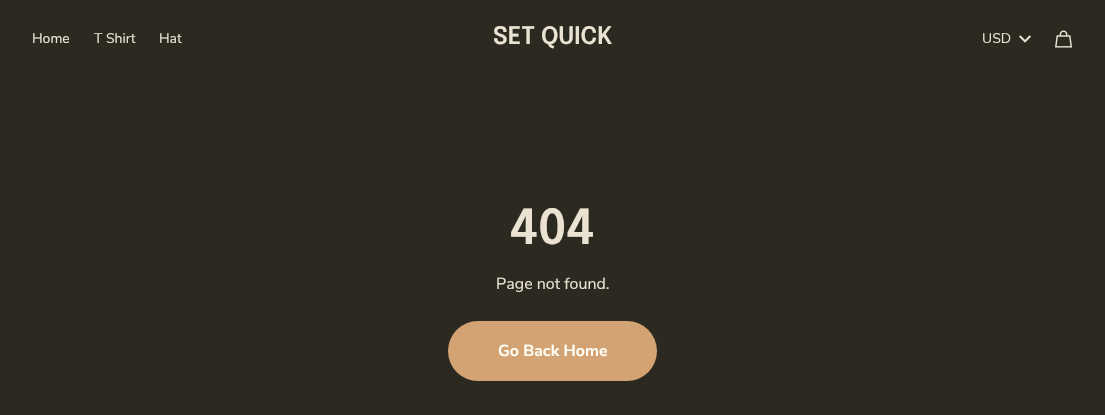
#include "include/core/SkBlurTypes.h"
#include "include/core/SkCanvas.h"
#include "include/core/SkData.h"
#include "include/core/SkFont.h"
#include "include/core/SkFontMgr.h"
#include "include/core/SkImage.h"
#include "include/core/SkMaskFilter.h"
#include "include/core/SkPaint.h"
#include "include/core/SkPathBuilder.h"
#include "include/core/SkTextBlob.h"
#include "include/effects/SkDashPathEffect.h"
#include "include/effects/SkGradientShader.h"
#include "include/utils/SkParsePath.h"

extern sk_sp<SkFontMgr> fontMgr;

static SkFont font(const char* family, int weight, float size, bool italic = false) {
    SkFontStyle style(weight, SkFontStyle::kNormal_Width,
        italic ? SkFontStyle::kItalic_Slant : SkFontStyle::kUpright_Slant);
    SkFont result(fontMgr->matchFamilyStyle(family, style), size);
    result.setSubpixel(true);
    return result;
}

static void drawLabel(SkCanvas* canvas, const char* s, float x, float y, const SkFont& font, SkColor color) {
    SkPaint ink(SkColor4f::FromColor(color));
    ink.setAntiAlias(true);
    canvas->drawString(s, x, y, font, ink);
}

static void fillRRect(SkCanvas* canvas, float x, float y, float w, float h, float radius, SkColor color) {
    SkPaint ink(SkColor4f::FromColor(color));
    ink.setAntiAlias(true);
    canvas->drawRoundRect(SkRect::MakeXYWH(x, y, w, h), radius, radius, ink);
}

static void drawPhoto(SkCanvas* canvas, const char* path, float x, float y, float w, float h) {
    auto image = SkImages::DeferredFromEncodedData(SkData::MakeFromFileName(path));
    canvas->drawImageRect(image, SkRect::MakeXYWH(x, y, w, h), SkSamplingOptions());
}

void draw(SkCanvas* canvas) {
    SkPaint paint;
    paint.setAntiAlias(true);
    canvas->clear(0xFF2C2920);
    SkFont font1 = font("Nunito Sans", 400, 14);
    drawLabel(canvas, "Home", 32, 43, font1, 0xFFEAE3D2);
    drawLabel(canvas, "T Shirt", 94, 43, font1, 0xFFEAE3D2);
    drawLabel(canvas, "Hat", 159, 43, font1, 0xFFEAE3D2);
    SkFont font2 = font("Epilogue", 600, 24);
    drawLabel(canvas, "SET QUICK", 493, 44, font2, 0xFFEAE3D2);
    drawLabel(canvas, "USD", 982, 43, font1, 0xFFEAE3D2);
    drawPhoto(canvas, "assets/img1.png", 1019, 35, 12, 8);
    drawPhoto(canvas, "assets/img2.png", 1055, 30, 17, 18);
    SkFont font3 = font("Epilogue", 600, 48);
    drawLabel(canvas, "404", 510, 244, font3, 0xFFEAE3D2);
    SkFont font4 = font("Nunito Sans", 400, 16);
    drawLabel(canvas, "Page not found.", 496, 289, font4, 0xFFEAE3D2);
    fillRRect(canvas, 448, 321, 209, 60, 30, 0xFFD4A373);
    SkFont font5 = font("Nunito Sans", 700, 16);
    drawLabel(canvas, "Go Back Home", 498, 356, font5, 0xFFFFFFF6);
}
